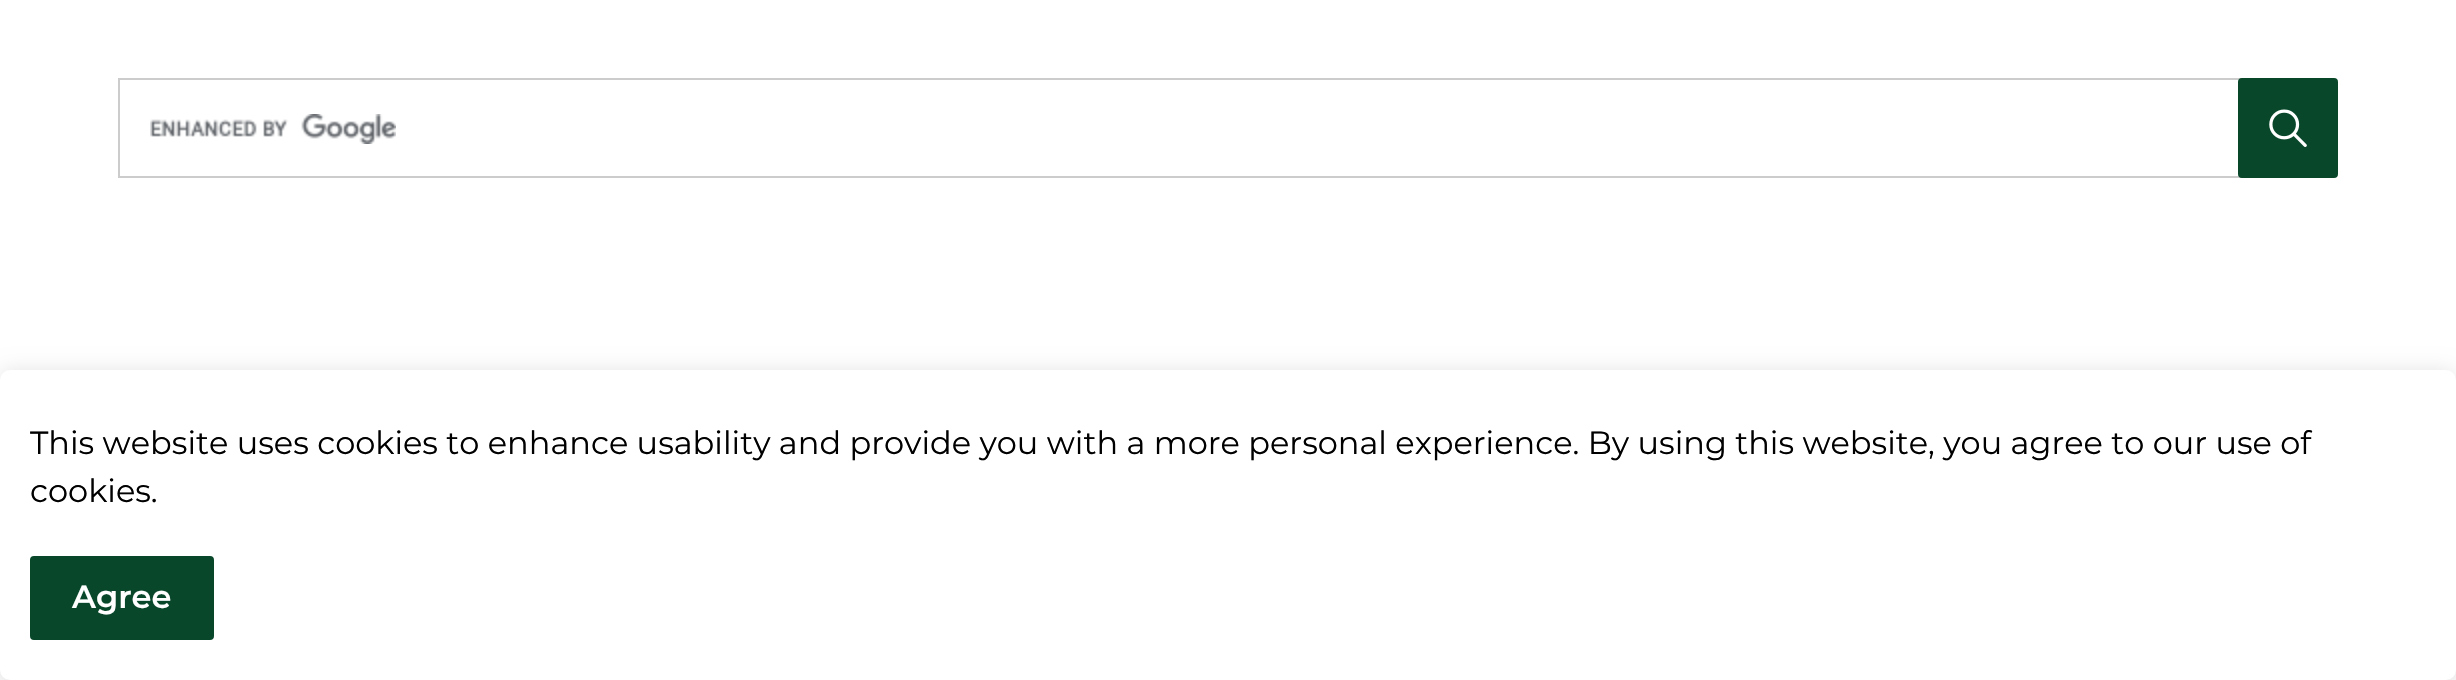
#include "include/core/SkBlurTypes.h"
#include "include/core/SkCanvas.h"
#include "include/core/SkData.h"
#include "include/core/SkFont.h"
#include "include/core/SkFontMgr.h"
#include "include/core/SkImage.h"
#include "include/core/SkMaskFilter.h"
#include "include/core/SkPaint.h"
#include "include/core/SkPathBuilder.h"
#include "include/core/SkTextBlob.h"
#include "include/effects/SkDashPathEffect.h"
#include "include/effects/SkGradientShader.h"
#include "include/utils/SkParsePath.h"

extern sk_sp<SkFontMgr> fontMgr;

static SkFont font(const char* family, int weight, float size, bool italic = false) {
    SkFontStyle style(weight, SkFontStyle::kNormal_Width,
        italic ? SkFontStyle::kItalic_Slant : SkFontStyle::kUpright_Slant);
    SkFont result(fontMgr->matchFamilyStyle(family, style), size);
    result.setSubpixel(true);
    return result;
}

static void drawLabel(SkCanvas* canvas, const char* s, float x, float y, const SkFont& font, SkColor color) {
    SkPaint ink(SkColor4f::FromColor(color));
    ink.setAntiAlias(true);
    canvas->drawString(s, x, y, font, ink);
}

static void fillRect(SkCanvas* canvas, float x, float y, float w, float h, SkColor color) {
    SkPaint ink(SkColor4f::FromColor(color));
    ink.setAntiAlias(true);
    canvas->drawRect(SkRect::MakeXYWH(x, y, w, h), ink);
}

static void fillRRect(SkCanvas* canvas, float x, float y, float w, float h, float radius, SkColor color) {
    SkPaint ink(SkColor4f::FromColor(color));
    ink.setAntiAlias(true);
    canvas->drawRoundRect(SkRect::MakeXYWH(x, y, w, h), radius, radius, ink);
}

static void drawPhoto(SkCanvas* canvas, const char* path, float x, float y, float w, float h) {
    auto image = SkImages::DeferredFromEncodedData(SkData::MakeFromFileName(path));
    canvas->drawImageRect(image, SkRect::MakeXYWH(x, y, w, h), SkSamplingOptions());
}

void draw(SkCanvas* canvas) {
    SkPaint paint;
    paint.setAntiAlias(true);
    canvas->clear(0xFFFFFFFF);
    drawPhoto(canvas, "assets/img1.png", 150, 114, 246, 30);
    paint.setStroke(true);
    paint.setStrokeWidth(2);
    paint.setColor(0xFFCCCCCC);
    canvas->drawRect(SkRect::MakeXYWH(119, 79, 2196, 98), paint);
    paint.setStroke(false);
    paint.setColor(0xFF08472A);
    canvas->drawRoundRect(SkRect::MakeXYWH(2239, 79, 98, 98), 3, 3, paint);
    paint.setStroke(true);
    canvas->drawRoundRect(SkRect::MakeXYWH(2239, 79, 98, 98), 3, 3, paint);
    drawPhoto(canvas, "assets/img2.png", 2269, 109, 38, 38);
    fillRect(canvas, 0, 670, 2456, 10, 0xFFF9F9F9);
    paint.setStroke(false);
    paint.setColor(0x1A000000);
    paint.setMaskFilter(SkMaskFilter::MakeBlur(kNormal_SkBlurStyle, 10));
    canvas->drawRoundRect(SkRect::MakeXYWH(0, 370, 2456, 310), 10, 10, paint);
    paint.setMaskFilter(nullptr);
    fillRRect(canvas, 0, 370, 2456, 310, 10, 0xFFFFFFFF);
    SkFont font1 = font("Montserrat", 400, 32);
    drawLabel(canvas, "This website uses cookies to enhance usability and provide you with a more personal experience. By using this website, you agree to our use of", 30, 454, font1, 0xFF000000);
    drawLabel(canvas, "cookies.", 30, 502, font1, 0xFF000000);
    paint.setColor(0xFF08472A);
    canvas->drawRoundRect(SkRect::MakeXYWH(31, 557, 182, 82), 3, 3, paint);
    paint.setStroke(true);
    canvas->drawRoundRect(SkRect::MakeXYWH(31, 557, 182, 82), 3, 3, paint);
    SkFont font2 = font("Montserrat", 600, 32);
    drawLabel(canvas, "Agree", 72, 608, font2, 0xFFFFFFFF);
}
